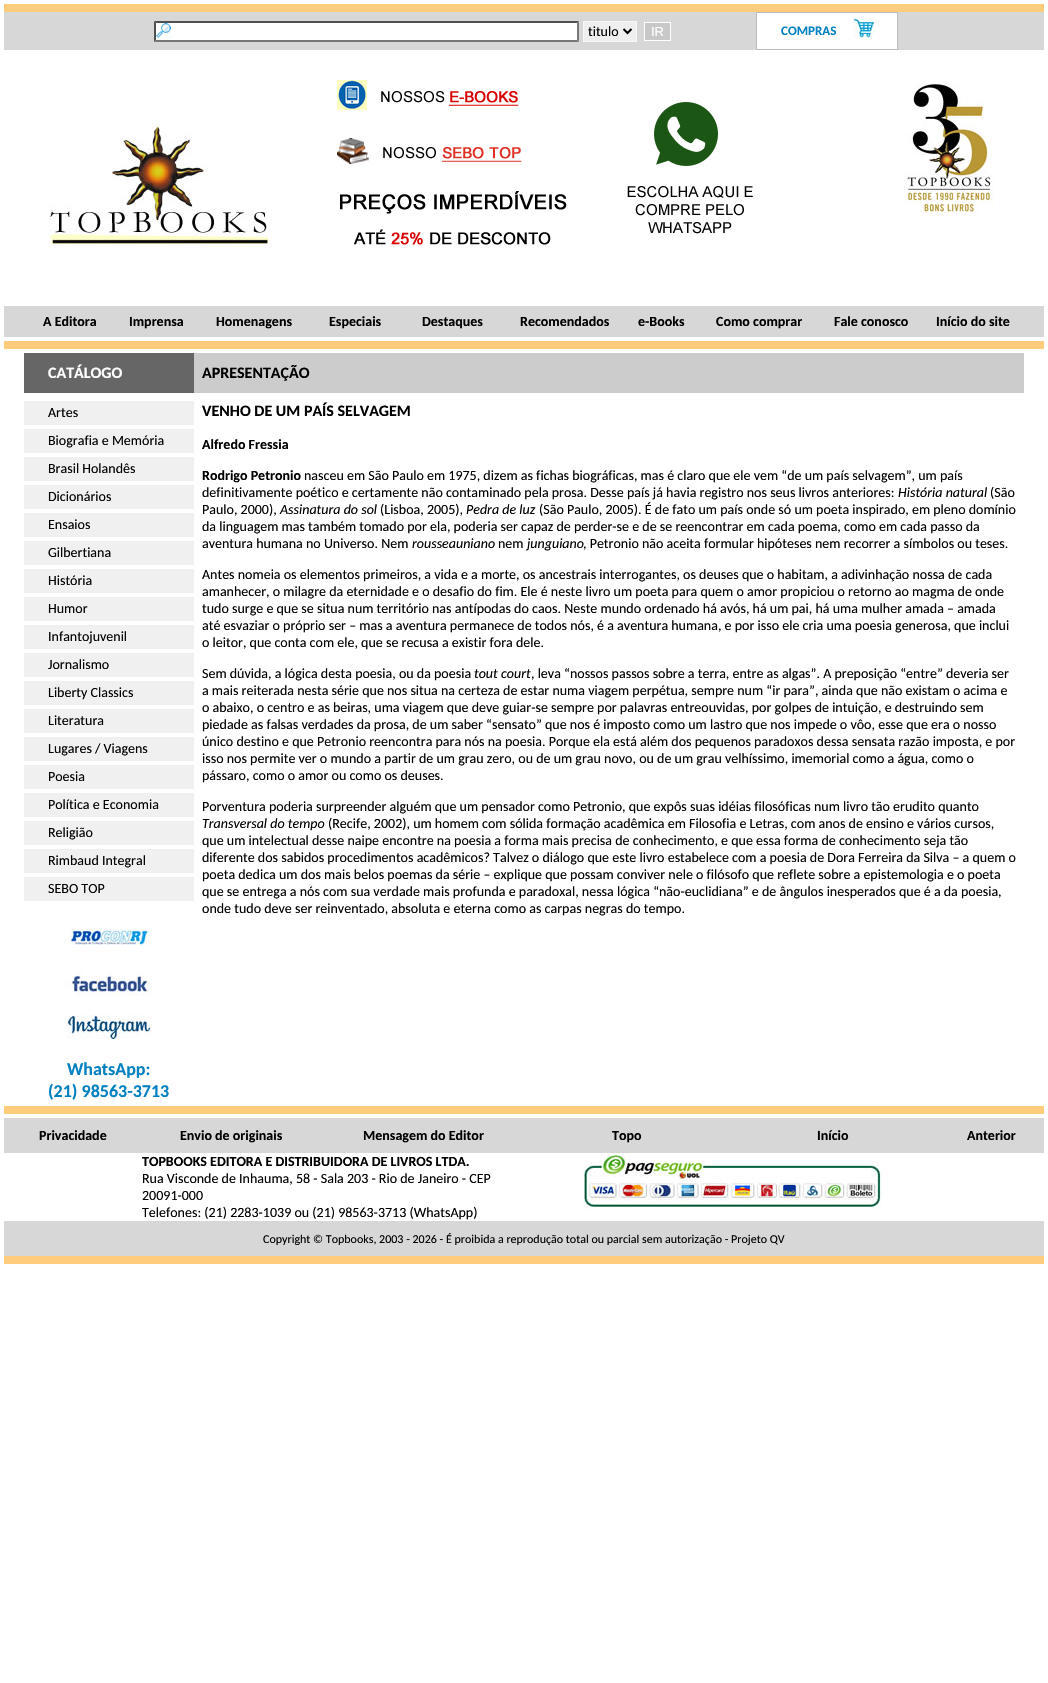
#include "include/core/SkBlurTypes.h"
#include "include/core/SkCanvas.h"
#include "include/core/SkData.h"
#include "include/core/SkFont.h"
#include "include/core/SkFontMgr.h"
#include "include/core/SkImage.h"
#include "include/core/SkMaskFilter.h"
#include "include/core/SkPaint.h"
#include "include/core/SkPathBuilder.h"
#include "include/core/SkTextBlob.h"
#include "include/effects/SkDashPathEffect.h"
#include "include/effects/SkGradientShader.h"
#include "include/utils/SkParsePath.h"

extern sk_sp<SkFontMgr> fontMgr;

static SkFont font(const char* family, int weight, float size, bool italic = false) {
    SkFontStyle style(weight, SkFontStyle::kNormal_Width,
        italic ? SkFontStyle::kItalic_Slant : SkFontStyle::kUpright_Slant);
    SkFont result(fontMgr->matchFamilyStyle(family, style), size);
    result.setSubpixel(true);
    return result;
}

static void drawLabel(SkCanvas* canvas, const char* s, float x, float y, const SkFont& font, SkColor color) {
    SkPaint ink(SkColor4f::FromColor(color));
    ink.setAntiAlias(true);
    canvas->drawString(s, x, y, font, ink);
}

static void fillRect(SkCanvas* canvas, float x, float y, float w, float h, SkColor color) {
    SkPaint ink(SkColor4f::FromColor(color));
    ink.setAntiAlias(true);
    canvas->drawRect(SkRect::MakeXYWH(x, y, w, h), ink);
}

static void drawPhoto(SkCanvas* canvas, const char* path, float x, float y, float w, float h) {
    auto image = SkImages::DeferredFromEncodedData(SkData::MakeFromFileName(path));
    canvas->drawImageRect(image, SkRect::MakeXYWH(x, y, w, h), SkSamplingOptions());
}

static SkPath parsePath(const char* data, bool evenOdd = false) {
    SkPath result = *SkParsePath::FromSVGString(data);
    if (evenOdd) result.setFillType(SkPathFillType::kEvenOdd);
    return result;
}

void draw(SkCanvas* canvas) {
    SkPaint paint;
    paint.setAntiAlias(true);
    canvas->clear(0xFFFFFFFF);
    fillRect(canvas, 4, 12, 1040, 38, 0xFFD7D7D7);
    fillRect(canvas, 4, 4, 1040, 8, 0xFFFFCB7D);
    fillRect(canvas, 154, 21, 425, 21, 0xFFFFFFFF);
    drawPhoto(canvas, "assets/img1.png", 156, 23, 15, 15);
    paint.setColor(0xFF4F4F4F);
    canvas->drawPath(parsePath("M154 21H579L577 23H156Z"), paint);
    paint.setColor(0xFF767676);
    canvas->drawPath(parsePath("M579 21V42L577 40V23Z"), paint);
    canvas->drawPath(parsePath("M579 42H154L156 40H577Z"), paint);
    paint.setColor(0xFF4F4F4F);
    canvas->drawPath(parsePath("M154 42V21L156 23V40Z"), paint);
    paint.setColor(0xFFEFEFEF);
    canvas->drawRect(SkRect::MakeXYWH(583.5f, 21.5f, 53, 20), paint);
    paint.setStroke(true);
    paint.setStrokeWidth(1);
    paint.setColor(0xFFF7F7F7);
    canvas->drawRect(SkRect::MakeXYWH(583.5f, 21.5f, 53, 20), paint);
    paint.setStrokeWidth(2);
    paint.setColor(0xFF000000);
    canvas->drawPath(parsePath("M623.5 29L627.5 33L631.5 29"), paint);
    SkFont font1 = font("Carlito", 400, 14);
    drawLabel(canvas, "titulo", 588, 36, font1, 0xFF000000);
    paint.setStroke(false);
    paint.setColor(0xFFC8C8C8);
    canvas->drawRect(SkRect::MakeXYWH(644.5f, 22.5f, 26, 18), paint);
    paint.setStroke(true);
    paint.setStrokeWidth(1);
    paint.setColor(0xFFFFFFFF);
    canvas->drawRect(SkRect::MakeXYWH(644.5f, 22.5f, 26, 18), paint);
    SkFont font2 = font("Liberation Sans", 400, 13);
    drawLabel(canvas, "IR", 651, 36, font2, 0xFFFFFFFF);
    paint.setStroke(false);
    canvas->drawRect(SkRect::MakeXYWH(756.5f, 12.5f, 141, 37), paint);
    paint.setStroke(true);
    paint.setColor(0xFFBCBCBC);
    canvas->drawRect(SkRect::MakeXYWH(756.5f, 12.5f, 141, 37), paint);
    SkFont font3 = font("Carlito", 700, 13);
    drawLabel(canvas, "COMPRAS", 781, 35, font3, 0xFF0080C0);
    drawPhoto(canvas, "assets/img2.png", 854, 18, 20, 20);
    drawPhoto(canvas, "assets/img3.png", 48, 124, 220, 120);
    drawPhoto(canvas, "assets/img4.png", 337, 80, 416, 165);
    drawPhoto(canvas, "assets/img5.png", 906, 84, 88, 128);
    fillRect(canvas, 4, 306, 1040, 31, 0xFFD7D7D7);
    SkFont font4 = font("Carlito", 700, 14);
    drawLabel(canvas, "A Editora", 43, 326, font4, 0xFF000000);
    drawLabel(canvas, "Imprensa", 129, 326, font4, 0xFF000000);
    drawLabel(canvas, "Homenagens", 216, 326, font4, 0xFF000000);
    drawLabel(canvas, "Especiais", 329, 326, font4, 0xFF000000);
    drawLabel(canvas, "Destaques", 422, 326, font4, 0xFF000000);
    drawLabel(canvas, "Recomendados", 520, 326, font4, 0xFF000000);
    drawLabel(canvas, "e-Books", 638, 326, font4, 0xFF000000);
    drawLabel(canvas, "Como comprar", 716, 326, font4, 0xFF000000);
    drawLabel(canvas, "Fale conosco", 834, 326, font4, 0xFF000000);
    drawLabel(canvas, "Início do site", 936, 326, font4, 0xFF000000);
    fillRect(canvas, 4, 341, 1040, 8, 0xFFFFCB7D);
    fillRect(canvas, 24, 353, 170, 40, 0xFF666666);
    SkFont font5 = font("Carlito", 700, 16);
    drawLabel(canvas, "CATÁLOGO", 48, 378, font5, 0xFFFFFFFF);
    fillRect(canvas, 194, 353, 830, 40, 0xFFCCCCCC);
    drawLabel(canvas, "APRESENTAÇÃO", 202, 378, font5, 0xFF000000);
    fillRect(canvas, 24, 401, 170, 24, 0xFFF0F0F0);
    drawLabel(canvas, "Artes", 48, 417, font1, 0xFF000000);
    fillRect(canvas, 24, 429, 170, 24, 0xFFF0F0F0);
    drawLabel(canvas, "Biografia e Memória", 48, 445, font1, 0xFF000000);
    fillRect(canvas, 24, 457, 170, 24, 0xFFF0F0F0);
    drawLabel(canvas, "Brasil Holandês", 48, 473, font1, 0xFF000000);
    fillRect(canvas, 24, 485, 170, 24, 0xFFF0F0F0);
    drawLabel(canvas, "Dicionários", 48, 501, font1, 0xFF000000);
    fillRect(canvas, 24, 513, 170, 24, 0xFFF0F0F0);
    drawLabel(canvas, "Ensaios", 48, 529, font1, 0xFF000000);
    fillRect(canvas, 24, 541, 170, 24, 0xFFF0F0F0);
    drawLabel(canvas, "Gilbertiana", 48, 557, font1, 0xFF000000);
    fillRect(canvas, 24, 569, 170, 24, 0xFFF0F0F0);
    drawLabel(canvas, "História", 48, 585, font1, 0xFF000000);
    fillRect(canvas, 24, 597, 170, 24, 0xFFF0F0F0);
    drawLabel(canvas, "Humor", 48, 613, font1, 0xFF000000);
    fillRect(canvas, 24, 625, 170, 24, 0xFFF0F0F0);
    drawLabel(canvas, "Infantojuvenil", 48, 641, font1, 0xFF000000);
    fillRect(canvas, 24, 653, 170, 24, 0xFFF0F0F0);
    drawLabel(canvas, "Jornalismo", 48, 669, font1, 0xFF000000);
    fillRect(canvas, 24, 681, 170, 24, 0xFFF0F0F0);
    drawLabel(canvas, "Liberty Classics", 48, 697, font1, 0xFF000000);
    fillRect(canvas, 24, 709, 170, 24, 0xFFF0F0F0);
    drawLabel(canvas, "Literatura", 48, 725, font1, 0xFF000000);
    fillRect(canvas, 24, 737, 170, 24, 0xFFF0F0F0);
    drawLabel(canvas, "Lugares / Viagens", 48, 753, font1, 0xFF000000);
    fillRect(canvas, 24, 765, 170, 24, 0xFFF0F0F0);
    drawLabel(canvas, "Poesia", 48, 781, font1, 0xFF000000);
    fillRect(canvas, 24, 793, 170, 24, 0xFFF0F0F0);
    drawLabel(canvas, "Política e Economia", 48, 809, font1, 0xFF000000);
    fillRect(canvas, 24, 821, 170, 24, 0xFFF0F0F0);
    drawLabel(canvas, "Religião", 48, 837, font1, 0xFF000000);
    fillRect(canvas, 24, 849, 170, 24, 0xFFF0F0F0);
    drawLabel(canvas, "Rimbaud Integral", 48, 865, font1, 0xFF000000);
    fillRect(canvas, 24, 877, 170, 24, 0xFFF0F0F0);
    drawLabel(canvas, "SEBO TOP", 48, 893, font1, 0xFF000000);
    drawPhoto(canvas, "assets/img6.png", 70, 929, 79, 16);
    drawPhoto(canvas, "assets/img7.png", 66, 972, 86, 24);
    drawPhoto(canvas, "assets/img8.png", 66, 1015, 86, 24);
    SkFont font6 = font("Carlito", 700, 18);
    drawLabel(canvas, "WhatsApp:", 67, 1075, font6, 0xFF0080C0);
    drawLabel(canvas, "(21) 98563-3713", 48, 1097, font6, 0xFF0080C0);
    drawLabel(canvas, "VENHO DE UM PAÍS SELVAGEM", 202, 416, font5, 0xFF000000);
    drawLabel(canvas, "Alfredo Fressia", 202, 449, font4, 0xFF000000);
    drawLabel(canvas, "Rodrigo Petronio", 202, 480, font4, 0xFF000000);
    drawLabel(canvas, "nasceu em São Paulo em 1975, dizem as fichas biográficas, mas é claro que ele vem “de um país selvagem”, um país", 304, 480, font1, 0xFF000000);
    drawLabel(canvas, "definitivamente poético e certamente não contaminado pela prosa. Desse país já havia registro nos seus livros anteriores:", 202, 497, font1, 0xFF000000);
    SkFont font7 = font("Carlito", 400, 14, true);
    drawLabel(canvas, "História natural", 898, 497, font7, 0xFF000000);
    drawLabel(canvas, "(São", 990, 497, font1, 0xFF000000);
    drawLabel(canvas, "Paulo, 2000),", 202, 514, font1, 0xFF000000);
    drawLabel(canvas, "Assinatura do sol", 280, 514, font7, 0xFF000000);
    drawLabel(canvas, "(Lisboa, 2005),", 380, 514, font1, 0xFF000000);
    drawLabel(canvas, "Pedra de luz", 466, 514, font7, 0xFF000000);
    drawLabel(canvas, "(São Paulo, 2005). É de fato um país onde só um poeta inspirado, em pleno domínio", 539, 514, font1, 0xFF000000);
    drawLabel(canvas, "da linguagem mas também tomado por ela, poderia ser capaz de perder-se e de se reencontrar em cada poema, como em cada passo da", 202, 531, font1, 0xFF000000);
    drawLabel(canvas, "aventura humana no Universo. Nem", 202, 548, font1, 0xFF000000);
    drawLabel(canvas, "rousseauniano", 412, 548, font7, 0xFF000000);
    drawLabel(canvas, "nem", 498, 548, font1, 0xFF000000);
    drawLabel(canvas, "junguiano", 527, 548, font7, 0xFF000000);
    drawLabel(canvas, ", Petronio não aceita formular hipóteses nem recorrer a símbolos ou teses.", 583, 548, font1, 0xFF000000);
    drawLabel(canvas, "Antes nomeia os elementos primeiros, a vida e a morte, os ancestrais interrogantes, os deuses que o habitam, a adivinhação nossa de cada", 202, 579, font1, 0xFF000000);
    drawLabel(canvas, "amanhecer, o milagre da eternidade e o desafio do fim. Ele é neste livro um poeta para quem o amor propiciou o retorno ao magma de onde", 202, 596, font1, 0xFF000000);
    drawLabel(canvas, "tudo surge e que se situa num território nas antípodas do caos. Neste mundo ordenado há avós, há um pai, há uma mulher amada – amada", 202, 613, font1, 0xFF000000);
    drawLabel(canvas, "até esvaziar o próprio ser – mas a aventura permanece de todos nós, é a aventura humana, e por isso ele cria uma poesia generosa, que inclui", 202, 630, font1, 0xFF000000);
    drawLabel(canvas, "o leitor, que conta com ele, que se recusa a existir fora dele.", 202, 647, font1, 0xFF000000);
    drawLabel(canvas, "Sem dúvida, a lógica desta poesia, ou da poesia", 202, 678, font1, 0xFF000000);
    drawLabel(canvas, "tout court", 474, 678, font7, 0xFF000000);
    drawLabel(canvas, ", leva “nossos passos sobre a terra, entre as algas”. A preposição “entre” deveria ser", 531, 678, font1, 0xFF000000);
    drawLabel(canvas, "a mais reiterada nesta série que nos situa na certeza de estar numa viagem perpétua, sempre num “ir para”, ainda que não existam o acima e", 202, 695, font1, 0xFF000000);
    drawLabel(canvas, "o abaixo, o centro e as beiras, uma viagem que deve guiar-se sempre por palavras entreouvidas, por golpes de intuição, e destruindo sem", 202, 712, font1, 0xFF000000);
    drawLabel(canvas, "piedade as falsas verdades da prosa, de um saber “sensato” que nos é imposto como um lastro que nos impede o vôo, esse que era o nosso", 202, 729, font1, 0xFF000000);
    drawLabel(canvas, "único destino e que Petronio reencontra para nós na poesia. Porque ela está além dos pequenos paradoxos dessa sensata razão imposta, e por", 202, 746, font1, 0xFF000000);
    drawLabel(canvas, "isso nos permite ver o mundo a partir de um grau zero, ou de um grau novo, ou de um grau velhíssimo, imemorial como a água, como o", 202, 763, font1, 0xFF000000);
    drawLabel(canvas, "pássaro, como o amor ou como os deuses.", 202, 780, font1, 0xFF000000);
    drawLabel(canvas, "Porventura poderia surpreender alguém que um pensador como Petronio, que expôs suas idéias filosóficas num livro tão erudito quanto", 202, 811, font1, 0xFF000000);
    drawLabel(canvas, "Transversal do tempo", 202, 828, font7, 0xFF000000);
    drawLabel(canvas, "(Recife, 2002), um homem com sólida formação acadêmica em Filosofia e Letras, com anos de ensino e vários cursos,", 328, 828, font1, 0xFF000000);
    drawLabel(canvas, "que um intelectual desse naipe encontre na poesia a forma mais precisa de conhecimento, e que essa forma de conhecimento seja tão", 202, 845, font1, 0xFF000000);
    drawLabel(canvas, "diferente dos sabidos procedimentos acadêmicos? Talvez o diálogo que este livro estabelece com a poesia de Dora Ferreira da Silva – a quem o", 202, 862, font1, 0xFF000000);
    drawLabel(canvas, "poeta dedica um dos mais belos poemas da série – explique que possam conviver nele o filósofo que reflete sobre a epistemologia e o poeta", 202, 879, font1, 0xFF000000);
    drawLabel(canvas, "que se entrega a nós com sua verdade mais profunda e paradoxal, nessa lógica “não-euclidiana” e de ângulos inesperados que é a da poesia,", 202, 896, font1, 0xFF000000);
    drawLabel(canvas, "onde tudo deve ser reinventado, absoluta e eterna como as carpas negras do tempo.", 202, 913, font1, 0xFF000000);
    fillRect(canvas, 4, 1106, 1040, 8, 0xFFFFCB7D);
    fillRect(canvas, 4, 1118, 1040, 138, 0xFFD7D7D7);
    drawLabel(canvas, "Privacidade", 39, 1140, font4, 0xFF000000);
    drawLabel(canvas, "Envio de originais", 180, 1140, font4, 0xFF000000);
    drawLabel(canvas, "Mensagem do Editor", 363, 1140, font4, 0xFF000000);
    drawLabel(canvas, "Topo", 612, 1140, font4, 0xFF000000);
    drawLabel(canvas, "Início", 817, 1140, font4, 0xFF000000);
    drawLabel(canvas, "Anterior", 967, 1140, font4, 0xFF000000);
    fillRect(canvas, 4, 1153, 1040, 68, 0xFFFFFFFF);
    drawLabel(canvas, "TOPBOOKS EDITORA E DISTRIBUIDORA DE LIVROS LTDA.", 142, 1166, font4, 0xFF000000);
    drawLabel(canvas, "Rua Visconde de Inhauma, 58 - Sala 203 - Rio de Janeiro - CEP", 142, 1183, font1, 0xFF000000);
    drawLabel(canvas, "20091-000", 142, 1200, font1, 0xFF000000);
    drawLabel(canvas, "Telefones: (21) 2283-1039 ou (21) 98563-3713 (WhatsApp)", 142, 1217, font1, 0xFF000000);
    drawPhoto(canvas, "assets/img9.png", 583, 1153, 300, 56);
    SkFont font8 = font("Carlito", 400, 12);
    drawLabel(canvas, "Copyright © Topbooks, 2003 - 2026 - É proibida a reprodução total ou parcial sem autorização - Projeto QV", 263, 1243, font8, 0xFF000000);
    fillRect(canvas, 4, 1256, 1040, 8, 0xFFFFCB7D);
}
